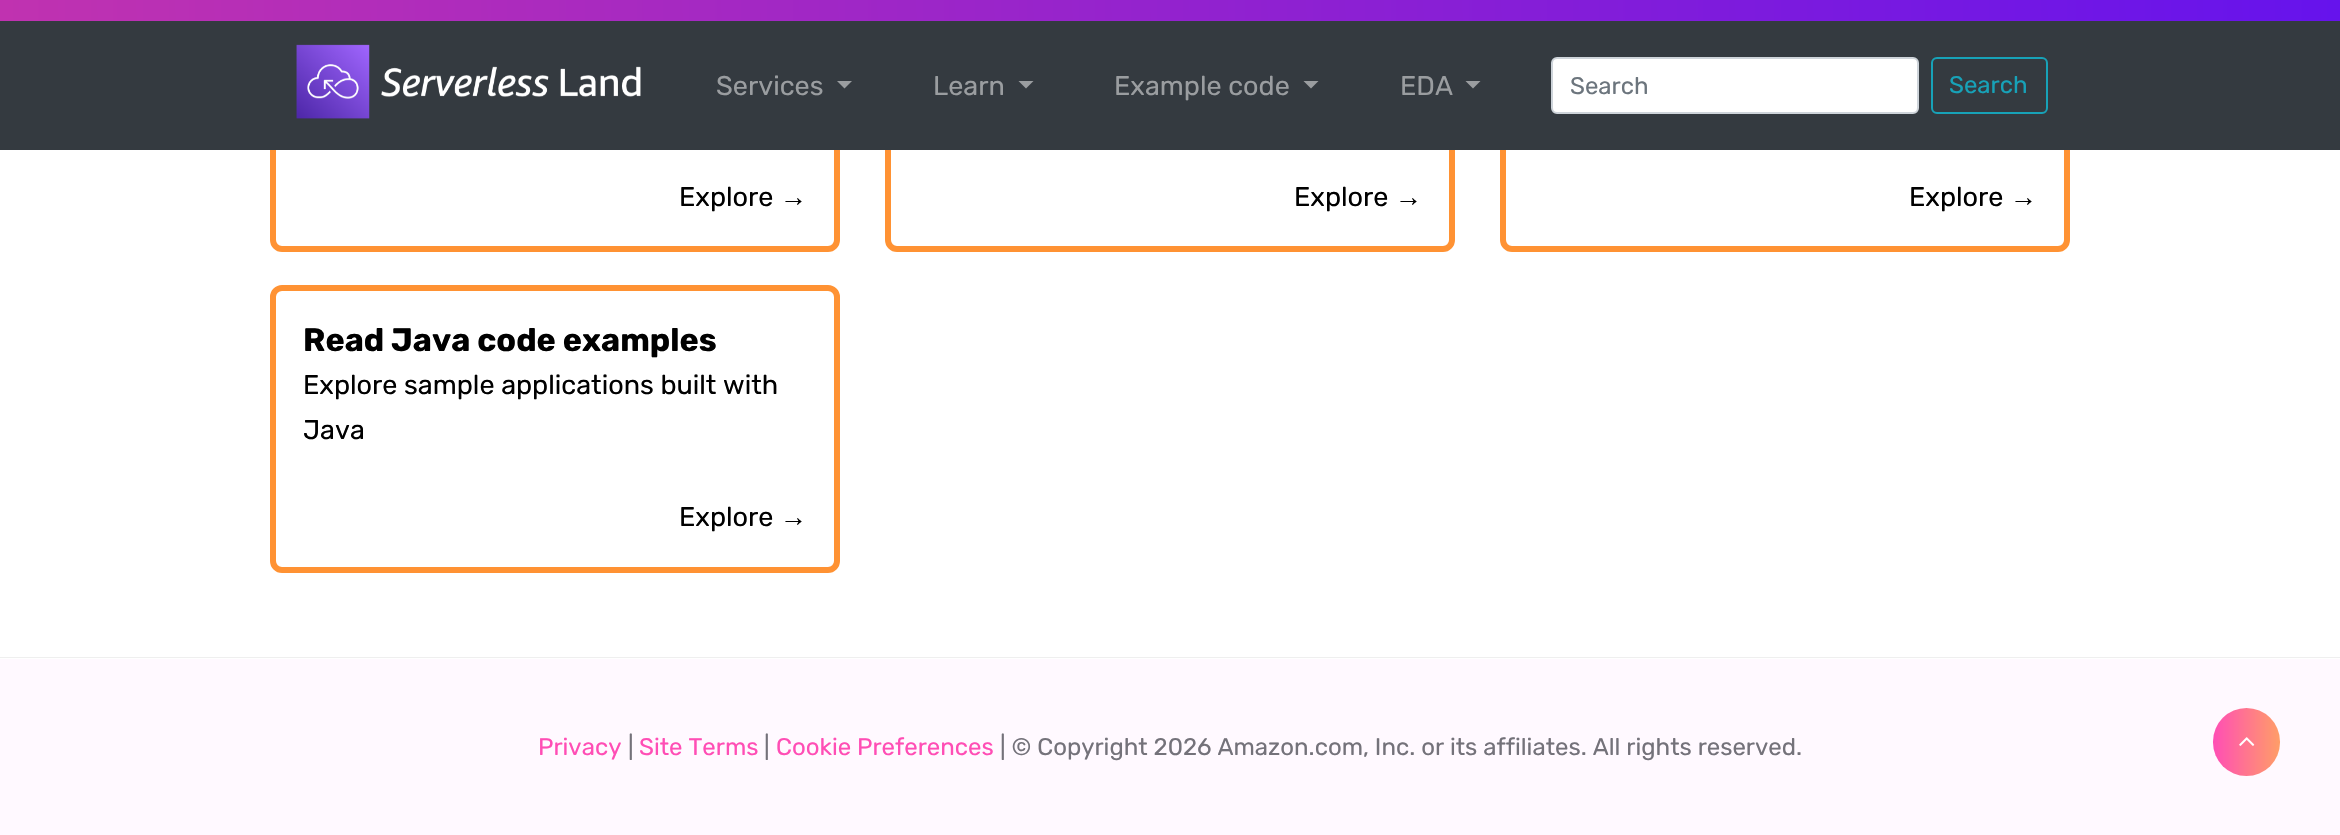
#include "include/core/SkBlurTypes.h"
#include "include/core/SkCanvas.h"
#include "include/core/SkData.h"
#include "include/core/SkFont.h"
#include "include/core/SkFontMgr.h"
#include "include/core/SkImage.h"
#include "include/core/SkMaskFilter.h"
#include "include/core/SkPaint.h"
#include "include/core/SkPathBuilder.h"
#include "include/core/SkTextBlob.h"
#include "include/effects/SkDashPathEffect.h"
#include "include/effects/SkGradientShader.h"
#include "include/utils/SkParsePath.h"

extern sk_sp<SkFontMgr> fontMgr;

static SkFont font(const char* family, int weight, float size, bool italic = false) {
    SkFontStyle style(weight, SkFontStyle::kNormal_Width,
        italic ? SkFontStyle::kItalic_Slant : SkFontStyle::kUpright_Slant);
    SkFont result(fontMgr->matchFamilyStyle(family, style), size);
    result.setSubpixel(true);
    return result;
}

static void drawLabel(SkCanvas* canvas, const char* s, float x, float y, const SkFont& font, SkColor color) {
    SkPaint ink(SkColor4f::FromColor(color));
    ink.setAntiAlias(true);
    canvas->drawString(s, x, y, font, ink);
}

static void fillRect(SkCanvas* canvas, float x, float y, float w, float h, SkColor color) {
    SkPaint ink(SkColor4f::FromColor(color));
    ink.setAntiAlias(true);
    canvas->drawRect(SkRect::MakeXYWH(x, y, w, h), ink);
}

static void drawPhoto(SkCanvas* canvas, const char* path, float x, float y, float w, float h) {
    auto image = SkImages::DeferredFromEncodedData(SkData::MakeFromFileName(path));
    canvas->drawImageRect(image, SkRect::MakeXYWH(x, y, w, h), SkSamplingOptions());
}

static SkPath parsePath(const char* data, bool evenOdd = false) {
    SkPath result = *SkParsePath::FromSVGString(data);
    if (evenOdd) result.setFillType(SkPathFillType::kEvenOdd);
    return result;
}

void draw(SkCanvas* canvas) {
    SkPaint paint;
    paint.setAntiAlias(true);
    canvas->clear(0xFFFFFFFF);
    paint.setStroke(true);
    paint.setStrokeWidth(6);
    paint.setColor(0xFFFF9233);
    canvas->drawRoundRect(SkRect::MakeXYWH(273, 12, 564, 237), 9, 9, paint);
    canvas->drawRoundRect(SkRect::MakeXYWH(888, 12, 564, 237), 9, 9, paint);
    canvas->drawRoundRect(SkRect::MakeXYWH(1503, 12, 564, 237), 9, 9, paint);
    paint.setStroke(false);
    {
        const SkColor colors[] = {0xFFC032B0, 0xFF6613EC};
        const float stops[] = {0, 1};
        const SkPoint ends[] = {{0, 11}, {2340, 10}};
        paint.setShader(SkGradientShader::MakeLinear(ends, colors, stops, 2, SkTileMode::kClamp));
        paint.setAlpha(255);
    }
    canvas->drawRect(SkRect::MakeXYWH(0, 0, 2340, 21), paint);
    fillRect(canvas, 0, 21, 2340, 129, 0xFF343A40);
    drawPhoto(canvas, "assets/img1.png", 296, 44, 345, 75);
    SkFont font1 = font("Rubik", 400, 27);
    drawLabel(canvas, "Services", 716, 95, font1, 0xFF9A9DA0);
    paint.setShader(nullptr);
    paint.setColor(0xFF9A9DA0);
    canvas->drawPath(parsePath("M837 81H852L844.5 88.5Z"), paint);
    drawLabel(canvas, "Learn", 933, 95, font1, 0xFF9A9DA0);
    canvas->drawPath(parsePath("M1018.5 81H1033.5L1026 88.5Z"), paint);
    drawLabel(canvas, "Example code", 1114, 95, font1, 0xFF9A9DA0);
    canvas->drawPath(parsePath("M1303.5 81H1318.5L1311 88.5Z"), paint);
    drawLabel(canvas, "EDA", 1400, 95, font1, 0xFF9A9DA0);
    canvas->drawPath(parsePath("M1465.5 81H1480.5L1473 88.5Z"), paint);
    paint.setColor(0xFFFFFFFF);
    canvas->drawRoundRect(SkRect::MakeXYWH(1552, 58, 366, 55), 5, 5, paint);
    paint.setStroke(true);
    paint.setStrokeWidth(2);
    paint.setColor(0xFFCED4DA);
    canvas->drawRoundRect(SkRect::MakeXYWH(1552, 58, 366, 55), 5, 5, paint);
    SkFont font2 = font("Rubik", 400, 24);
    drawLabel(canvas, "Search", 1570, 94, font2, 0xFF6C757D);
    paint.setColor(0xFF17A2B8);
    canvas->drawRoundRect(SkRect::MakeXYWH(1932, 58, 115, 55), 5, 5, paint);
    drawLabel(canvas, "Search", 1949, 93, font2, 0xFF17A2B8);
    drawLabel(canvas, "Explore", 679, 206, font1, 0xFF000000);
    SkFont font3 = font("Liberation Serif", 400, 27);
    drawLabel(canvas, "→", 780, 206, font3, 0xFF000000);
    drawLabel(canvas, "Explore", 1294, 206, font1, 0xFF000000);
    drawLabel(canvas, "→", 1395, 206, font3, 0xFF000000);
    drawLabel(canvas, "Explore", 1909, 206, font1, 0xFF000000);
    drawLabel(canvas, "→", 2010, 206, font3, 0xFF000000);
    paint.setStrokeWidth(6);
    paint.setColor(0xFFFF9233);
    canvas->drawRoundRect(SkRect::MakeXYWH(273, 288, 564, 282), 9, 9, paint);
    SkFont font4 = font("Rubik", 700, 32.4f);
    drawLabel(canvas, "Read Java code examples", 303, 351, font4, 0xFF000000);
    drawLabel(canvas, "Explore sample applications built with", 303, 394, font1, 0xFF000000);
    drawLabel(canvas, "Java", 303, 439, font1, 0xFF000000);
    drawLabel(canvas, "Explore", 679, 526, font1, 0xFF000000);
    drawLabel(canvas, "→", 780, 526, font3, 0xFF000000);
    fillRect(canvas, 0, 657, 2340, 1, 0xFFEFEFEF);
    fillRect(canvas, 0, 659, 2340, 176, 0xFFFFF9FF);
    drawLabel(canvas, "Privacy", 538, 755, font2, 0xFFFF4EB5);
    drawLabel(canvas, "|", 628, 755, font2, 0xFF74727A);
    drawLabel(canvas, "Site Terms", 639, 755, font2, 0xFFFF4EB5);
    drawLabel(canvas, "|", 764, 755, font2, 0xFF74727A);
    drawLabel(canvas, "Cookie Preferences", 776, 755, font2, 0xFFFF4EB5);
    drawLabel(canvas, "| © Copyright 2026 Amazon.com, Inc. or its affiliates. All rights reserved.", 1000, 755, font2, 0xFF74727A);
    paint.setStroke(false);
    {
        const SkColor colors[] = {0xFFFF4EB5, 0xFFFFA065, 0xFFFF4EB5};
        const float stops[] = {0, 0.51f, 1};
        const SkPoint ends[] = {{2213, 742}, {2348, 742}};
        paint.setShader(SkGradientShader::MakeLinear(ends, colors, stops, 3, SkTileMode::kClamp));
        paint.setAlpha(255);
    }
    canvas->drawRoundRect(SkRect::MakeXYWH(2213, 708, 67, 68), 33.5f, 33.5f, paint);
    drawPhoto(canvas, "assets/img2.png", 2239, 737, 16, 9);
}
